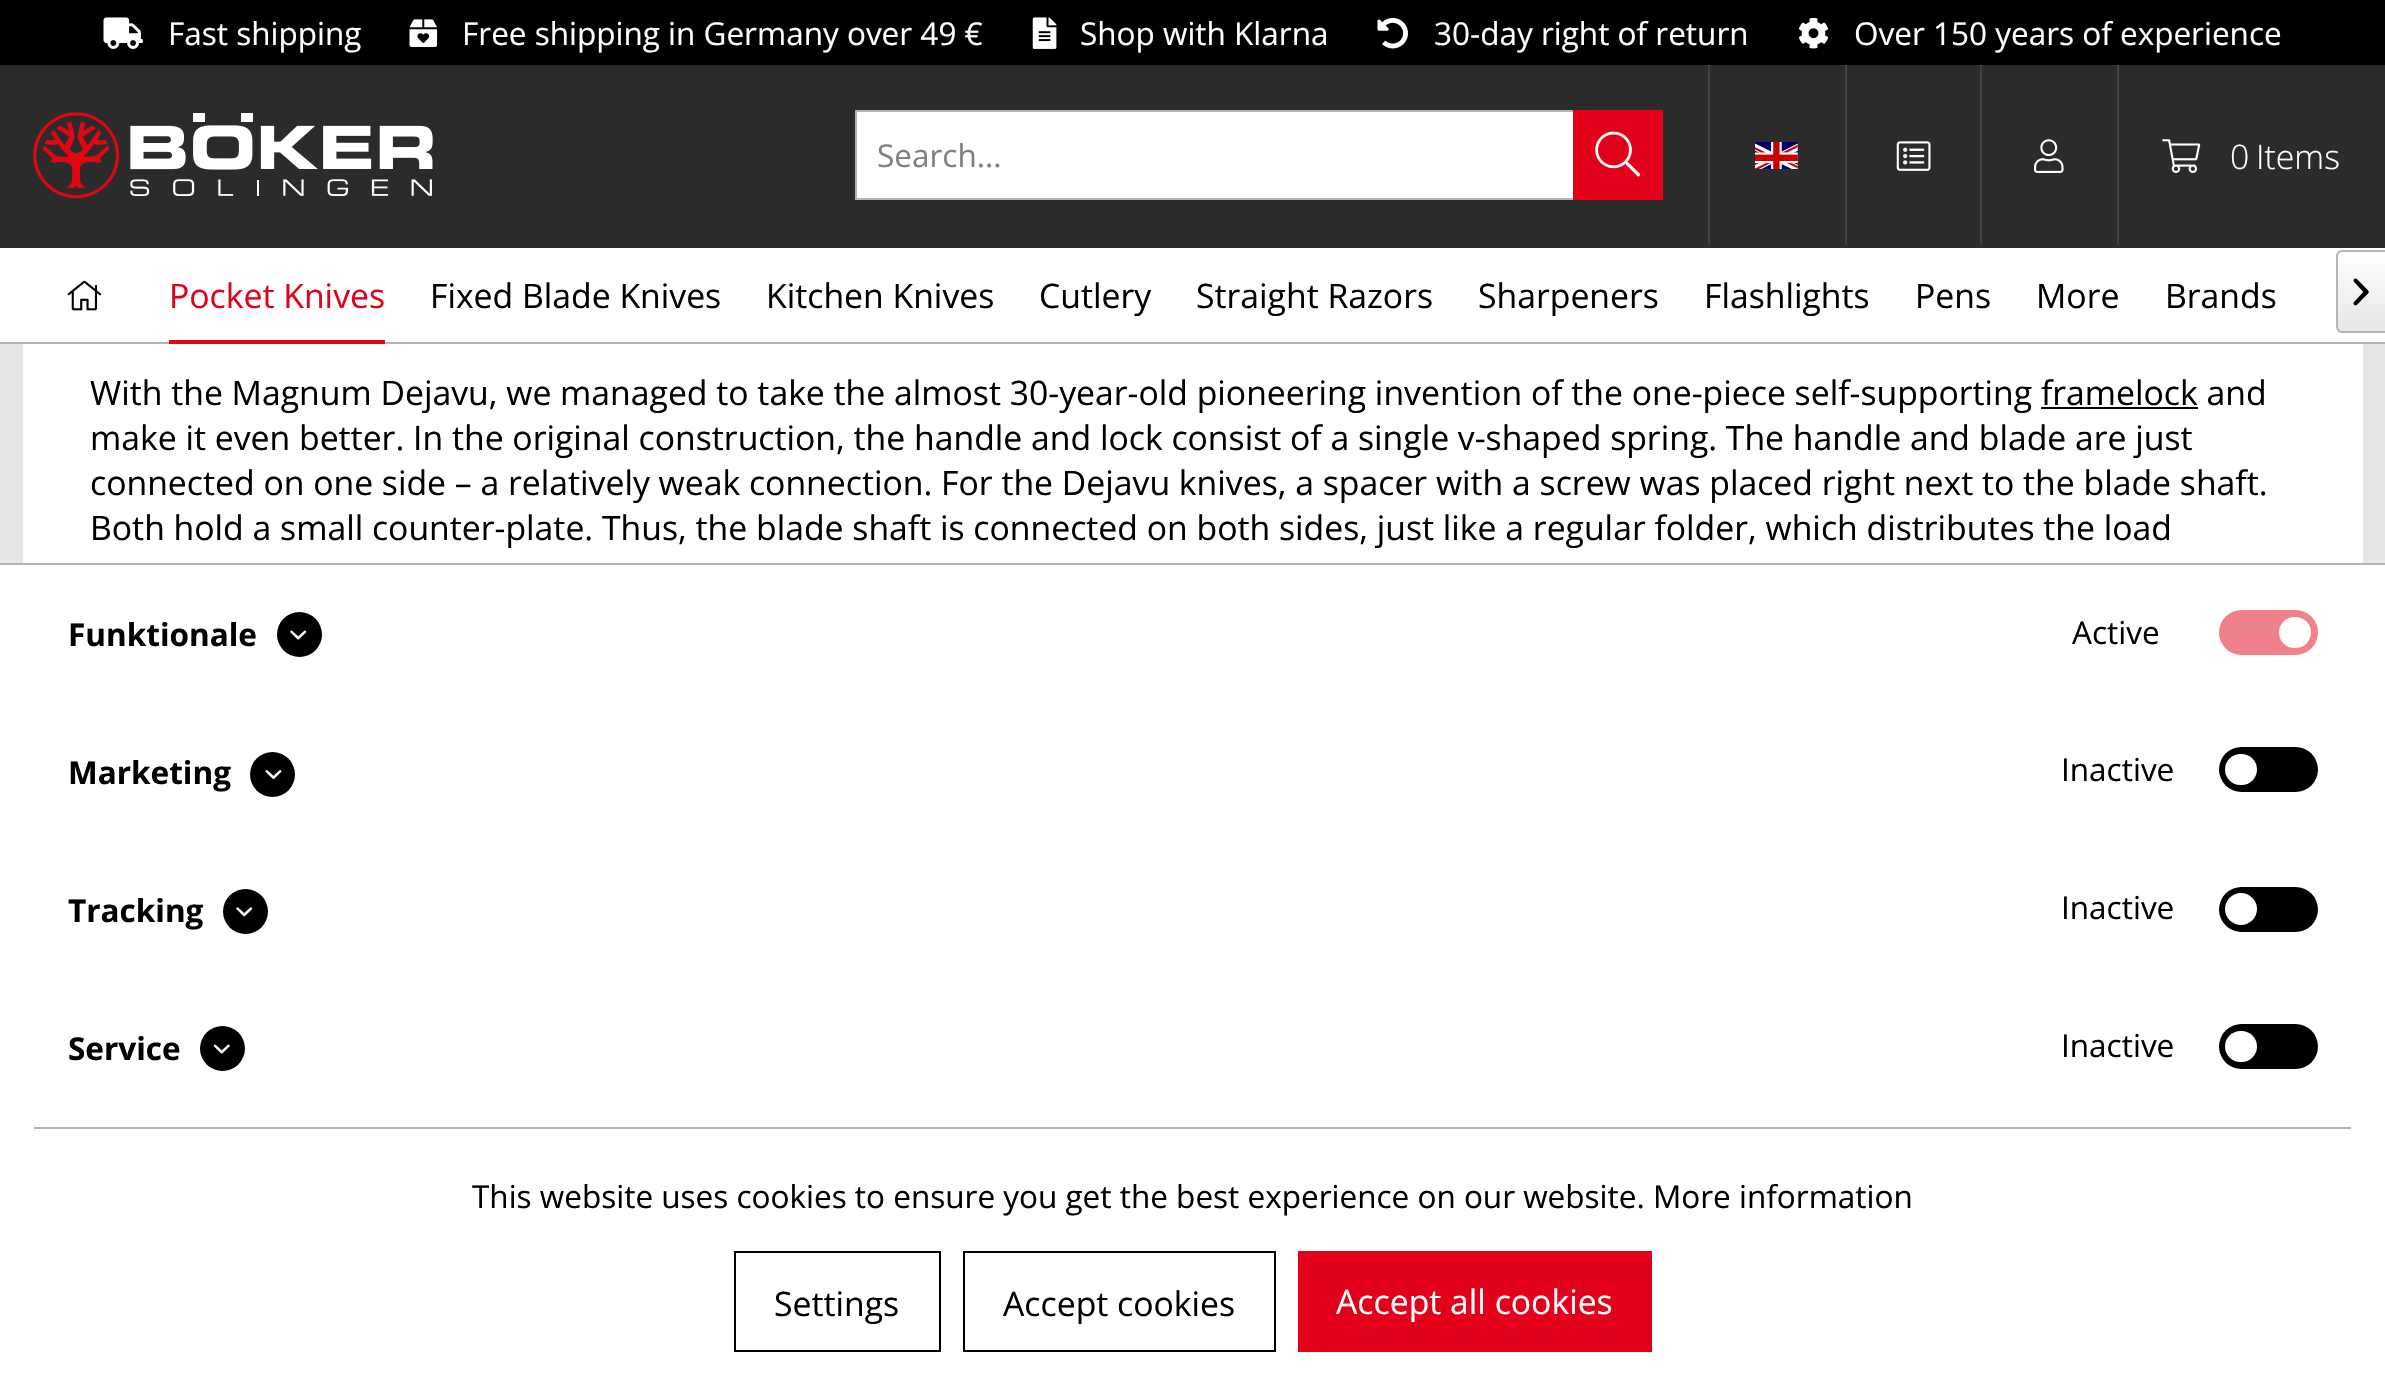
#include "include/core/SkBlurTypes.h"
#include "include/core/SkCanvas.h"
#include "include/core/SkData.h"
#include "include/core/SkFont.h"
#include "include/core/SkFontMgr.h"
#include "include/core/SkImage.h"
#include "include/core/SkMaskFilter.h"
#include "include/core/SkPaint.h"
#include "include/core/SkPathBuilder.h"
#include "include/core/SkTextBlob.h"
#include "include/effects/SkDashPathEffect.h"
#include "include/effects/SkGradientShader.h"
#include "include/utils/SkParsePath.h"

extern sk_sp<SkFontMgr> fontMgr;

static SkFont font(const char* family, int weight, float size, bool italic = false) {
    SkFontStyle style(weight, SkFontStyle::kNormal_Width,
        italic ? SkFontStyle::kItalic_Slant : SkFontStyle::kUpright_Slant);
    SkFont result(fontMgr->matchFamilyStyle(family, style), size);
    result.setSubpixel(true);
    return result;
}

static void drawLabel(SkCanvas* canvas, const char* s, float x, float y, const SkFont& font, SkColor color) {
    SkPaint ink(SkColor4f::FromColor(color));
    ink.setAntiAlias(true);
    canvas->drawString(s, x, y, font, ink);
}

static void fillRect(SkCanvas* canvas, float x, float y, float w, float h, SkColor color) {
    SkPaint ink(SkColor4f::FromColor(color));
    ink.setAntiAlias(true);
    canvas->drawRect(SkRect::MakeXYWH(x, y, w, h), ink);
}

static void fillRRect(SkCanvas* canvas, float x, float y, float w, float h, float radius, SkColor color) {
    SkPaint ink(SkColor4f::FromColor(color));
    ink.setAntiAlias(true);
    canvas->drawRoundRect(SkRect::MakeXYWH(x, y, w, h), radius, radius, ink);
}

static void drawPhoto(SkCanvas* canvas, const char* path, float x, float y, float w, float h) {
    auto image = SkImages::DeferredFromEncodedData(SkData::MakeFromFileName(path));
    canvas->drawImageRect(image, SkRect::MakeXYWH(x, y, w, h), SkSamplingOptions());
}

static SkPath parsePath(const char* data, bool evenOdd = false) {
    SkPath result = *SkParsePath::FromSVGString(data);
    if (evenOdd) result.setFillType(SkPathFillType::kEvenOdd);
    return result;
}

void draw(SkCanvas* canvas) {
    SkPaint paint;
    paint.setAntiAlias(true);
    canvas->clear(0xFFE6E6E6);
    fillRect(canvas, 0, 0, 2385, 65, 0xFF000000);
    drawPhoto(canvas, "assets/img1.png", 103, 17, 40, 32);
    SkFont font1 = font("Open Sans", 400, 31.5f);
    drawLabel(canvas, "Fast shipping", 168, 45, font1, 0xFFFFFFFF);
    drawPhoto(canvas, "assets/img2.png", 409, 19, 29, 28);
    drawLabel(canvas, "Free shipping in Germany over 49 €", 462, 45, font1, 0xFFFFFFFF);
    drawPhoto(canvas, "assets/img3.png", 1032, 17, 25, 32);
    drawLabel(canvas, "Shop with Klarna", 1080, 45, font1, 0xFFFFFFFF);
    drawPhoto(canvas, "assets/img4.png", 1377, 17, 31, 32);
    drawLabel(canvas, "30-day right of return", 1434, 45, font1, 0xFFFFFFFF);
    drawPhoto(canvas, "assets/img5.png", 1798, 17, 31, 32);
    drawLabel(canvas, "Over 150 years of experience", 1854, 45, font1, 0xFFFFFFFF);
    fillRect(canvas, 0, 65, 2385, 183, 0xFF2B2B2B);
    drawPhoto(canvas, "assets/img6.png", 33, 112, 400, 87);
    fillRect(canvas, 1708, 65, 2, 180, 0xFF414141);
    fillRect(canvas, 857, 112, 716, 86, 0xFFFFFFFF);
    paint.setStroke(true);
    paint.setStrokeWidth(2);
    paint.setColor(0xFFB4B4B4);
    canvas->drawRect(SkRect::MakeXYWH(856, 111, 806, 88), paint);
    drawLabel(canvas, "Search...", 877, 167, font1, 0xFF808080);
    fillRect(canvas, 1573, 110, 90, 90, 0xFFE2001A);
    drawPhoto(canvas, "assets/img7.png", 1595, 131, 46, 46);
    fillRect(canvas, 1845, 65, 2, 180, 0xFF414141);
    drawPhoto(canvas, "assets/img8.png", 1755, 142, 43, 27);
    fillRect(canvas, 1980, 65, 2, 180, 0xFF414141);
    drawPhoto(canvas, "assets/img9.png", 1896, 141, 35, 30);
    fillRect(canvas, 2117, 65, 2, 180, 0xFF414141);
    drawPhoto(canvas, "assets/img10.png", 2034, 139, 30, 34);
    drawPhoto(canvas, "assets/img11.png", 2162, 139, 39, 34);
    SkFont font2 = font("Open Sans", 300, 33.75f);
    drawLabel(canvas, "0", 2230, 169, font2, 0xFFFFFFFF);
    drawLabel(canvas, "Items", 2256, 169, font2, 0xFFFFFFFF);
    fillRect(canvas, 0, 248, 2385, 94, 0xFFFFFFFF);
    fillRect(canvas, 0, 342, 2385, 2, 0xFFB4B4B4);
    drawPhoto(canvas, "assets/img12.png", 67, 280, 35, 31);
    fillRect(canvas, 169, 340, 216, 4, 0xFFE2001A);
    SkFont font3 = font("Open Sans", 400, 33.75f);
    drawLabel(canvas, "Pocket Knives", 169, 308, font3, 0xFFE2001A);
    drawLabel(canvas, "Fixed Blade Knives", 430, 308, font3, 0xFF000000);
    drawLabel(canvas, "Kitchen Knives", 766, 308, font3, 0xFF000000);
    drawLabel(canvas, "Cutlery", 1039, 308, font3, 0xFF000000);
    drawLabel(canvas, "Straight Razors", 1196, 308, font3, 0xFF000000);
    drawLabel(canvas, "Sharpeners", 1478, 308, font3, 0xFF000000);
    drawLabel(canvas, "Flashlights", 1704, 308, font3, 0xFF000000);
    drawLabel(canvas, "Pens", 1915, 308, font3, 0xFF000000);
    drawLabel(canvas, "More", 2036, 308, font3, 0xFF000000);
    drawLabel(canvas, "Brands", 2165, 308, font3, 0xFF000000);
    paint.setStroke(false);
    {
        const SkColor colors[] = {0xFFFFFFFF, 0xFFE6E6E6};
        const float stops[] = {0, 1};
        const SkPoint ends[] = {{2361, 252}, {2361, 331}};
        paint.setShader(SkGradientShader::MakeLinear(ends, colors, stops, 2, SkTileMode::kClamp));
        paint.setAlpha(255);
    }
    canvas->drawPath(parsePath("M2343 252H2385V331H2343C2340 331 2338 329 2338 326V257C2338 254 2340 252 2343 252Z"), paint);
    paint.setShader(nullptr);
    paint.setColor(0xFFB4B4B4);
    canvas->drawPath(parsePath("M2342 250H2385V333H2342C2339 333 2336 330 2336 326V256C2336 253 2339 250 2342 250ZM2342 252H2385V331H2342C2340 331 2338 329 2338 326V256C2338 254 2340 252 2342 252Z", true), paint);
    drawPhoto(canvas, "assets/img13.png", 2353, 278, 16, 28);
    fillRect(canvas, 23, 344, 2340, 219, 0xFFFFFFFF);
    drawLabel(canvas, "With the Magnum Dejavu, we managed to take the almost 30-year-old pioneering invention of the one-piece self-supporting framelock and", 90, 405, font3, 0xFF000000);
    fillRect(canvas, 2041, 407, 157, 2, 0xFF000000);
    drawLabel(canvas, "make it even better. In the original construction, the handle and lock consist of a single v-shaped spring. The handle and blade are just", 90, 450, font3, 0xFF000000);
    drawLabel(canvas, "connected on one side – a relatively weak connection. For the Dejavu knives, a spacer with a screw was placed right next to the blade shaft.", 90, 495, font3, 0xFF000000);
    drawLabel(canvas, "Both hold a small counter-plate. Thus, the blade shaft is connected on both sides, just like a regular folder, which distributes the load", 90, 540, font3, 0xFF000000);
    fillRect(canvas, 0, 565, 2385, 820, 0xFFFFFFFF);
    fillRect(canvas, 0, 563, 2385, 2, 0xFFB4B4B4);
    fillRect(canvas, 34, 1127, 2317, 2, 0xFFB4B4B4);
    SkFont font4 = font("Open Sans", 700, 31.5f);
    drawLabel(canvas, "Funktionale", 68, 646, font4, 0xFF000000);
    paint.setColor(0xFF000000);
    canvas->drawCircle(299.5f, 634.5f, 22.5f, paint);
    drawPhoto(canvas, "assets/img14.png", 290, 630, 17, 10);
    drawLabel(canvas, "Active", 2072, 644, font1, 0xFF000000);
    fillRRect(canvas, 2219, 610, 99, 45, 22.5f, 0xFFF1808D);
    fillRRect(canvas, 2279, 617, 32, 31, 15.5f, 0xFFFFFFFF);
    drawLabel(canvas, "Marketing", 68, 784, font4, 0xFF000000);
    canvas->drawCircle(272.5f, 774.5f, 22.5f, paint);
    drawPhoto(canvas, "assets/img15.png", 265, 770, 17, 9);
    drawLabel(canvas, "Inactive", 2061, 781, font1, 0xFF000000);
    fillRRect(canvas, 2219, 747, 99, 45, 22.5f, 0xFF000000);
    fillRRect(canvas, 2225, 754, 32, 31, 15.5f, 0xFFFFFFFF);
    drawLabel(canvas, "Tracking", 68, 922, font4, 0xFF000000);
    canvas->drawCircle(245.5f, 911.5f, 22.5f, paint);
    drawPhoto(canvas, "assets/img16.png", 236, 907, 17, 10);
    drawLabel(canvas, "Inactive", 2061, 919, font1, 0xFF000000);
    fillRRect(canvas, 2219, 887, 99, 45, 22.5f, 0xFF000000);
    paint.setColor(0xFFFFFFFF);
    canvas->drawCircle(2241, 909, 16, paint);
    drawLabel(canvas, "Service", 68, 1060, font4, 0xFF000000);
    paint.setColor(0xFF000000);
    canvas->drawCircle(222.5f, 1048.5f, 22.5f, paint);
    drawPhoto(canvas, "assets/img17.png", 213, 1044, 17, 10);
    drawLabel(canvas, "Inactive", 2061, 1057, font1, 0xFF000000);
    fillRRect(canvas, 2219, 1024, 99, 45, 22.5f, 0xFF000000);
    fillRRect(canvas, 2225, 1031, 32, 31, 15.5f, 0xFFFFFFFF);
    drawLabel(canvas, "This website uses cookies to ensure you get the best experience on our website. More information", 472, 1208, font1, 0xFF000000);
    paint.setStroke(true);
    canvas->drawRect(SkRect::MakeXYWH(735, 1252, 205, 99), paint);
    drawLabel(canvas, "Settings", 774, 1316, font3, 0xFF000000);
    canvas->drawRect(SkRect::MakeXYWH(964, 1252, 311, 99), paint);
    drawLabel(canvas, "Accept cookies", 1003, 1316, font3, 0xFF000000);
    fillRect(canvas, 1298, 1251, 354, 101, 0xFFE2001A);
    drawLabel(canvas, "Accept all cookies", 1336, 1314, font3, 0xFFFFFFFF);
}
